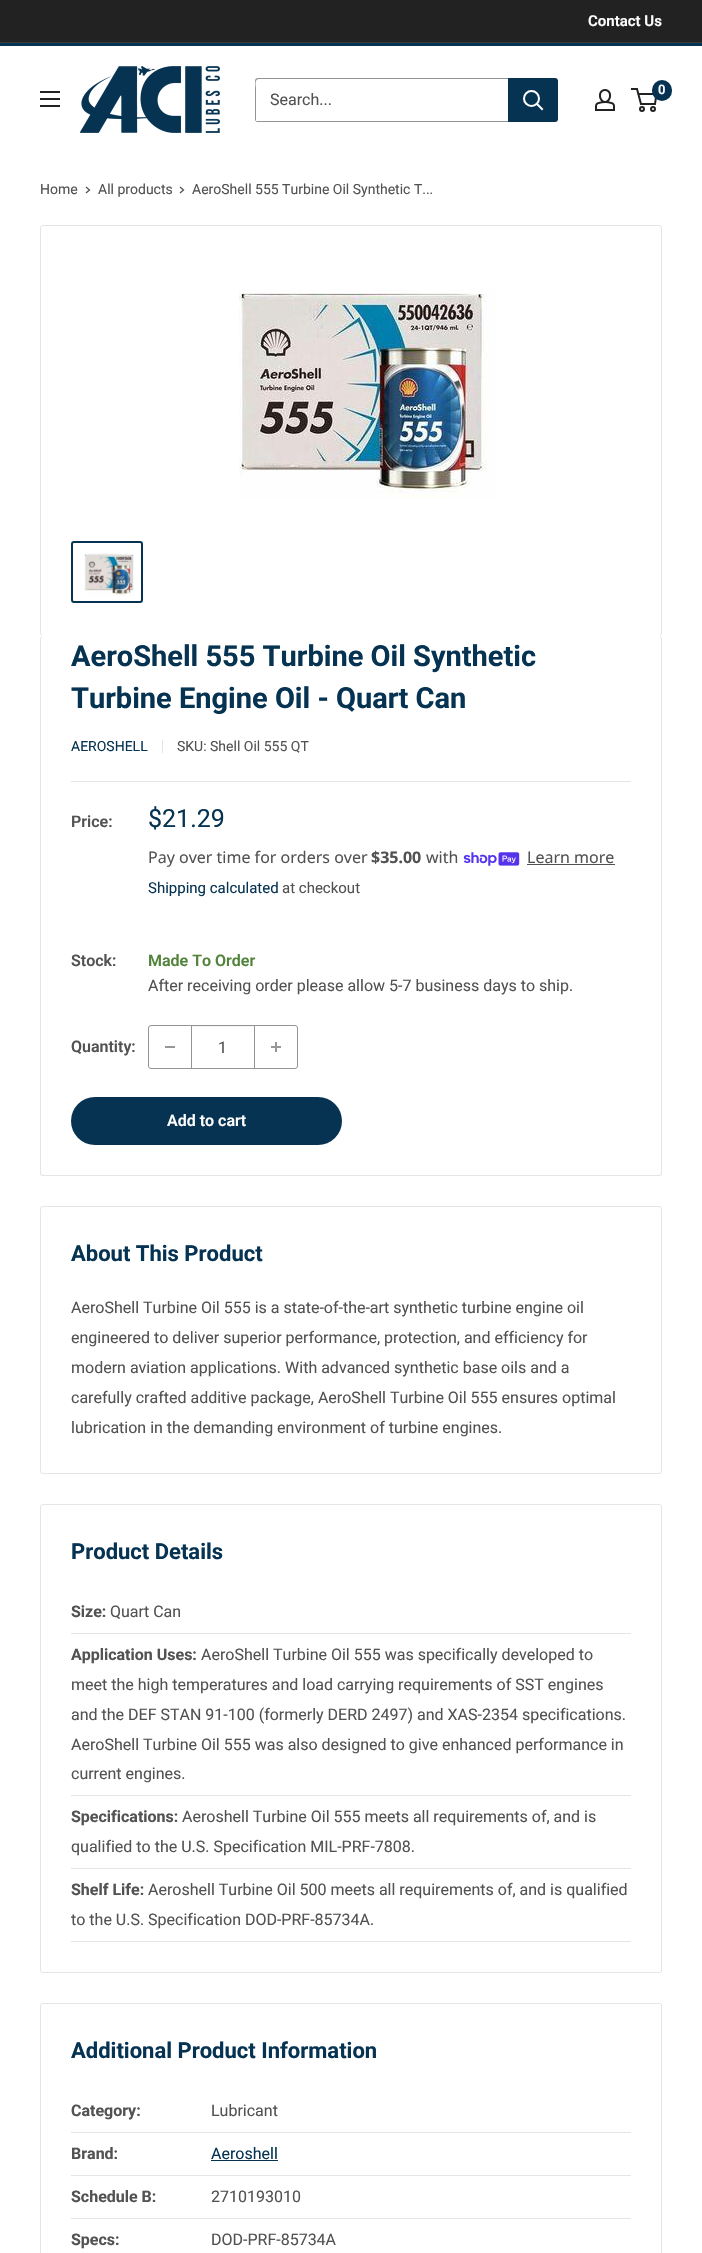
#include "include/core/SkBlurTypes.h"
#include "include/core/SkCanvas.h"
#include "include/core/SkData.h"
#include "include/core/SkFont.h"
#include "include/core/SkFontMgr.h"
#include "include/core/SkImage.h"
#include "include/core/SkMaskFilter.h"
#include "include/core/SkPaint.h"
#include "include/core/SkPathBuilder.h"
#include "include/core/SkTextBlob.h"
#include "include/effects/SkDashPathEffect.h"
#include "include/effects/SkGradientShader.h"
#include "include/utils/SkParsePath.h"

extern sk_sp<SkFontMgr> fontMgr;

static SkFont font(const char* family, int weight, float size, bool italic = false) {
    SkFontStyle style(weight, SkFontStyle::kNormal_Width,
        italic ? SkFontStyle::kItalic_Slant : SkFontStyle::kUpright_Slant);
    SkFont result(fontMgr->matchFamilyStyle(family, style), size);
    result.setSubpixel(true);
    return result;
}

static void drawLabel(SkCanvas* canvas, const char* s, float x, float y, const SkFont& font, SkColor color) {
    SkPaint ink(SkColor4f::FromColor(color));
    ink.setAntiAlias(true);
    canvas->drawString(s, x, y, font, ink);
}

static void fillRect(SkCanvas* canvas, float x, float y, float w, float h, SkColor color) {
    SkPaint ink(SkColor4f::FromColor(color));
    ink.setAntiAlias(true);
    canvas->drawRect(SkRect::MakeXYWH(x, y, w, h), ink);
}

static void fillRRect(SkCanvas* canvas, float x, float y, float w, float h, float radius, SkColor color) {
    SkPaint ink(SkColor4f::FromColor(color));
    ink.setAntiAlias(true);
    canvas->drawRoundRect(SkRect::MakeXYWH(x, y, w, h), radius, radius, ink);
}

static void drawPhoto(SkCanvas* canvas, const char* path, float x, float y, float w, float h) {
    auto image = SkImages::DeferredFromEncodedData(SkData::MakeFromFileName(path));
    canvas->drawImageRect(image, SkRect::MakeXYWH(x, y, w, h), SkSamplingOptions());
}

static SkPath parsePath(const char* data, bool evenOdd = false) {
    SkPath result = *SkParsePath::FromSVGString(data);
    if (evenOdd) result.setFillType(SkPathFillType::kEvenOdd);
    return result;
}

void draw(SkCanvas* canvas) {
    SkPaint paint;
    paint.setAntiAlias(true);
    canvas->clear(0xFFFFFFFF);
    fillRect(canvas, 0, 0, 702, 42, 0xFF222222);
    fillRect(canvas, 0, 42, 702, 1, 0xFF3B3B3B);
    SkFont font1 = font("Roboto", 600, 15);
    drawLabel(canvas, "Contact Us", 588, 26, font1, 0xFFFFFFFF);
    fillRect(canvas, 0, 43, 702, 3, 0xFF063352);
    drawPhoto(canvas, "assets/img1.png", 80, 66, 140, 67);
    drawPhoto(canvas, "assets/img2.png", 595, 89, 20, 22);
    paint.setStroke(true);
    paint.setStrokeWidth(2);
    paint.setColor(0xFF222222);
    canvas->drawCircle(642, 109, 2, paint);
    canvas->drawCircle(653, 109, 2, paint);
    canvas->drawPath(parsePath("M638.5 94H656.5L655 104H641L637 89H631"), paint);
    fillRRect(canvas, 652, 80, 20, 21, 10, 0xFF063352);
    SkFont font2 = font("Roboto", 600, 13);
    drawLabel(canvas, "0", 658, 94, font2, 0xFFFFFFFF);
    drawPhoto(canvas, "assets/img3.png", 40, 91, 20, 16);
    paint.setStroke(false);
    paint.setColor(0xFF949494);
    canvas->drawPath(parsePath("M256 121C256 122 257 122 258 122H555C557 122 558 121 558 119V81C558 80 558 79 557 79V112C557 114 559 121 554 121Z"), paint);
    canvas->drawPath(parsePath("M259 79H557C557 78 556 78 555 78H258C256 78 255 79 255 81V119C255 120 255 121 256 121V88C256 86 254 79 259 79Z"), paint);
    SkFont font3 = font("Roboto", 400, 16);
    drawLabel(canvas, "Search...", 270, 105, font3, 0xFF525252);
    paint.setColor(0xFF063352);
    canvas->drawPath(parsePath("M508 78H555C556.5 78 558 79.5 558 81V119C558 120.5 556.5 122 555 122H508Z"), paint);
    paint.setStroke(true);
    paint.setStrokeCap(SkPaint::kSquare_Cap);
    paint.setColor(0xFFFFFFFF);
    canvas->drawPath(parsePath("M542 109L537 104"), paint);
    paint.setStrokeCap(SkPaint::kButt_Cap);
    canvas->drawCircle(531.5f, 98.5f, 7.5f, paint);
    SkFont font4 = font("Roboto", 400, 14);
    drawLabel(canvas, "Home", 40, 194, font4, 0xFF525252);
    paint.setStrokeWidth(1.3f);
    paint.setStrokeCap(SkPaint::kSquare_Cap);
    paint.setColor(0xFF525252);
    canvas->drawPath(parsePath("M86.5 187.5L89.5 190L86.5 192.5"), paint);
    drawLabel(canvas, "All products", 98, 194, font4, 0xFF525252);
    canvas->drawPath(parsePath("M180.5 187.5L183.5 190L180.5 192.5"), paint);
    drawLabel(canvas, "AeroShell 555 Turbine Oil Synthetic T...", 192, 194, font4, 0xFF525252);
    paint.setStrokeWidth(1);
    paint.setStrokeCap(SkPaint::kButt_Cap);
    paint.setColor(0xFFE5E5E5);
    canvas->drawRoundRect(SkRect::MakeXYWH(40.5f, 225.5f, 621, 410), 2.5f, 2.5f, paint);
    drawPhoto(canvas, "assets/img4.png", 239, 290, 256, 209);
    paint.setStrokeWidth(2);
    paint.setColor(0xFF063352);
    canvas->drawRoundRect(SkRect::MakeXYWH(72, 542, 70, 60), 2, 2, paint);
    drawPhoto(canvas, "assets/img5.png", 84, 553, 50, 43);
    paint.setStroke(false);
    paint.setColor(0xFFFFFFFF);
    canvas->drawPath(parsePath("M43 635C41 635 40 637 40 639C40 637 41 636 43 636H659C661 636 662 637 662 639C662 637 661 635 659 635Z"), paint);
    paint.setColor(0xFFE5E5E5);
    canvas->drawPath(parsePath("M43 636H659C661 636 662 637 662 639V1173C662 1175 661 1176 659 1176H43C41 1176 40 1175 40 1173V639C40 637 41 636 43 636ZM43 636H659C660 636 661 637 661 639V1173C661 1174 660 1175 659 1175H43C42 1175 41 1174 41 1173V639C41 637 42 636 43 636Z", true), paint);
    SkFont font5 = font("Roboto", 700, 29);
    drawLabel(canvas, "AeroShell 555 Turbine Oil Synthetic", 71, 666, font5, 0xFF063352);
    drawLabel(canvas, "Turbine Engine Oil - Quart Can", 71, 708, font5, 0xFF063352);
    drawLabel(canvas, "AEROSHELL", 71, 751, font4, 0xFF063352);
    fillRect(canvas, 162, 740, 1, 13, 0xFFE5E5E5);
    drawLabel(canvas, "SKU: Shell Oil 555 QT", 177, 751, font4, 0xFF525252);
    fillRect(canvas, 71, 781, 560, 1, 0xFFE5E5E5);
    SkFont font6 = font("Roboto", 600, 16);
    drawLabel(canvas, "Price:", 71, 827, font6, 0xFF525252);
    SkFont font7 = font("Roboto", 400, 25);
    drawLabel(canvas, "$21.29", 148, 827, font7, 0xFF063352);
    SkFont font8 = font("Noto Sans", 400, 16);
    drawLabel(canvas, "Pay over time for orders over", 148, 863, font8, 0xFF525252);
    SkFont font9 = font("Noto Sans", 700, 16);
    drawLabel(canvas, "$35.00", 371, 863, font9, 0xFF525252);
    drawLabel(canvas, "with", 426, 863, font8, 0xFF525252);
    drawPhoto(canvas, "assets/img6.png", 463, 852, 57, 14);
    drawLabel(canvas, "Learn more", 527, 863, font8, 0xFF525252);
    fillRect(canvas, 527, 864, 88, 1, 0xFF525252);
    SkFont font10 = font("Roboto", 400, 15);
    drawLabel(canvas, "Shipping calculated", 148, 893, font10, 0xFF063352);
    drawLabel(canvas, "at checkout", 282, 893, font10, 0xFF525252);
    drawLabel(canvas, "Stock:", 71, 966, font6, 0xFF525252);
    drawLabel(canvas, "Made To Order", 148, 966, font6, 0xFF51833B);
    drawLabel(canvas, "After receiving order please allow 5-7 business days to ship.", 148, 991, font3, 0xFF525252);
    drawLabel(canvas, "Quantity:", 71, 1052, font6, 0xFF525252);
    paint.setStroke(true);
    paint.setStrokeWidth(1);
    paint.setColor(0xFF949494);
    canvas->drawRoundRect(SkRect::MakeXYWH(148.5f, 1025.5f, 149, 43), 2.5f, 2.5f, paint);
    fillRect(canvas, 165, 1046, 10, 2, 0xFF979797);
    fillRect(canvas, 192, 1026, 62, 1, 0xFFF5F5F5);
    fillRect(canvas, 254, 1026, 1, 42, 0xFF949494);
    fillRect(canvas, 191, 1026, 1, 42, 0xFF949494);
    drawLabel(canvas, "1", 218, 1053, font3, 0xFF525252);
    drawPhoto(canvas, "assets/img7.png", 271, 1042, 10, 10);
    fillRRect(canvas, 71, 1097, 271, 48, 24, 0xFF063352);
    drawLabel(canvas, "Add to cart", 167, 1126, font6, 0xFFFFFFFF);
    paint.setColor(0xFFE5E5E5);
    canvas->drawRoundRect(SkRect::MakeXYWH(40.5f, 1206.5f, 621, 267), 2.5f, 2.5f, paint);
    SkFont font11 = font("Roboto", 700, 22);
    drawLabel(canvas, "About This Product", 71, 1261, font11, 0xFF063352);
    drawLabel(canvas, "AeroShell Turbine Oil 555 is a state-of-the-art synthetic turbine engine oil", 71, 1313, font3, 0xFF525252);
    drawLabel(canvas, "engineered to deliver superior performance, protection, and efficiency for", 71, 1343, font3, 0xFF525252);
    drawLabel(canvas, "modern aviation applications. With advanced synthetic base oils and a", 71, 1373, font3, 0xFF525252);
    drawLabel(canvas, "carefully crafted additive package, AeroShell Turbine Oil 555 ensures optimal", 71, 1403, font3, 0xFF525252);
    drawLabel(canvas, "lubrication in the demanding environment of turbine engines.", 71, 1433, font3, 0xFF525252);
    canvas->drawRoundRect(SkRect::MakeXYWH(40.5f, 1504.5f, 621, 468), 2.5f, 2.5f, paint);
    drawLabel(canvas, "Product Details", 71, 1559, font11, 0xFF063352);
    fillRect(canvas, 71, 1633, 560, 1, 0xFFE5E5E5);
    SkFont font12 = font("Roboto", 700, 16);
    drawLabel(canvas, "Size:", 71, 1617, font12, 0xFF525252);
    drawLabel(canvas, "Quart Can", 110, 1617, font3, 0xFF525252);
    fillRect(canvas, 71, 1795, 560, 1, 0xFFE5E5E5);
    drawLabel(canvas, "Application Uses:", 71, 1660, font12, 0xFF525252);
    drawLabel(canvas, "AeroShell Turbine Oil 555 was specifically developed to", 201, 1660, font3, 0xFF525252);
    drawLabel(canvas, "meet the high temperatures and load carrying requirements of SST engines", 71, 1690, font3, 0xFF525252);
    drawLabel(canvas, "and the DEF STAN 91-100 (formerly DERD 2497) and XAS-2354 specifications.", 71, 1720, font3, 0xFF525252);
    drawLabel(canvas, "AeroShell Turbine Oil 555 was also designed to give enhanced performance in", 71, 1750, font3, 0xFF525252);
    drawLabel(canvas, "current engines.", 71, 1779, font3, 0xFF525252);
    fillRect(canvas, 71, 1868, 560, 1, 0xFFE5E5E5);
    drawLabel(canvas, "Specifications:", 71, 1822, font12, 0xFF525252);
    drawLabel(canvas, "Aeroshell Turbine Oil 555 meets all requirements of, and is", 182, 1822, font3, 0xFF525252);
    drawLabel(canvas, "qualified to the U.S. Specification MIL-PRF-7808.", 71, 1852, font3, 0xFF525252);
    fillRect(canvas, 71, 1941, 560, 1, 0xFFE5E5E5);
    drawLabel(canvas, "Shelf Life:", 71, 1895, font12, 0xFF525252);
    drawLabel(canvas, "Aeroshell Turbine Oil 500 meets all requirements of, and is qualified", 148, 1895, font3, 0xFF525252);
    drawLabel(canvas, "to the U.S. Specification DOD-PRF-85734A.", 71, 1925, font3, 0xFF525252);
    canvas->drawRoundRect(SkRect::MakeXYWH(40.5f, 2003.5f, 621, 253), 2.5f, 2.5f, paint);
    drawLabel(canvas, "Additional Product Information", 71, 2058, font11, 0xFF063352);
    fillRect(canvas, 71, 2132, 560, 1, 0xFFE5E5E5);
    drawLabel(canvas, "Category:", 71, 2116, font12, 0xFF525252);
    drawLabel(canvas, "Lubricant", 211, 2116, font3, 0xFF525252);
    fillRect(canvas, 71, 2175, 560, 1, 0xFFE5E5E5);
    drawLabel(canvas, "Brand:", 71, 2159, font12, 0xFF525252);
    drawLabel(canvas, "Aeroshell", 211, 2159, font3, 0xFF063352);
    fillRect(canvas, 211, 2160, 67, 1, 0xFF063352);
    fillRect(canvas, 71, 2218, 560, 1, 0xFFE5E5E5);
    drawLabel(canvas, "Schedule B:", 71, 2202, font12, 0xFF525252);
    drawLabel(canvas, "2710193010", 211, 2202, font3, 0xFF525252);
    drawLabel(canvas, "Specs:", 71, 2245, font12, 0xFF525252);
    drawLabel(canvas, "DOD-PRF-85734A", 211, 2245, font3, 0xFF525252);
}
